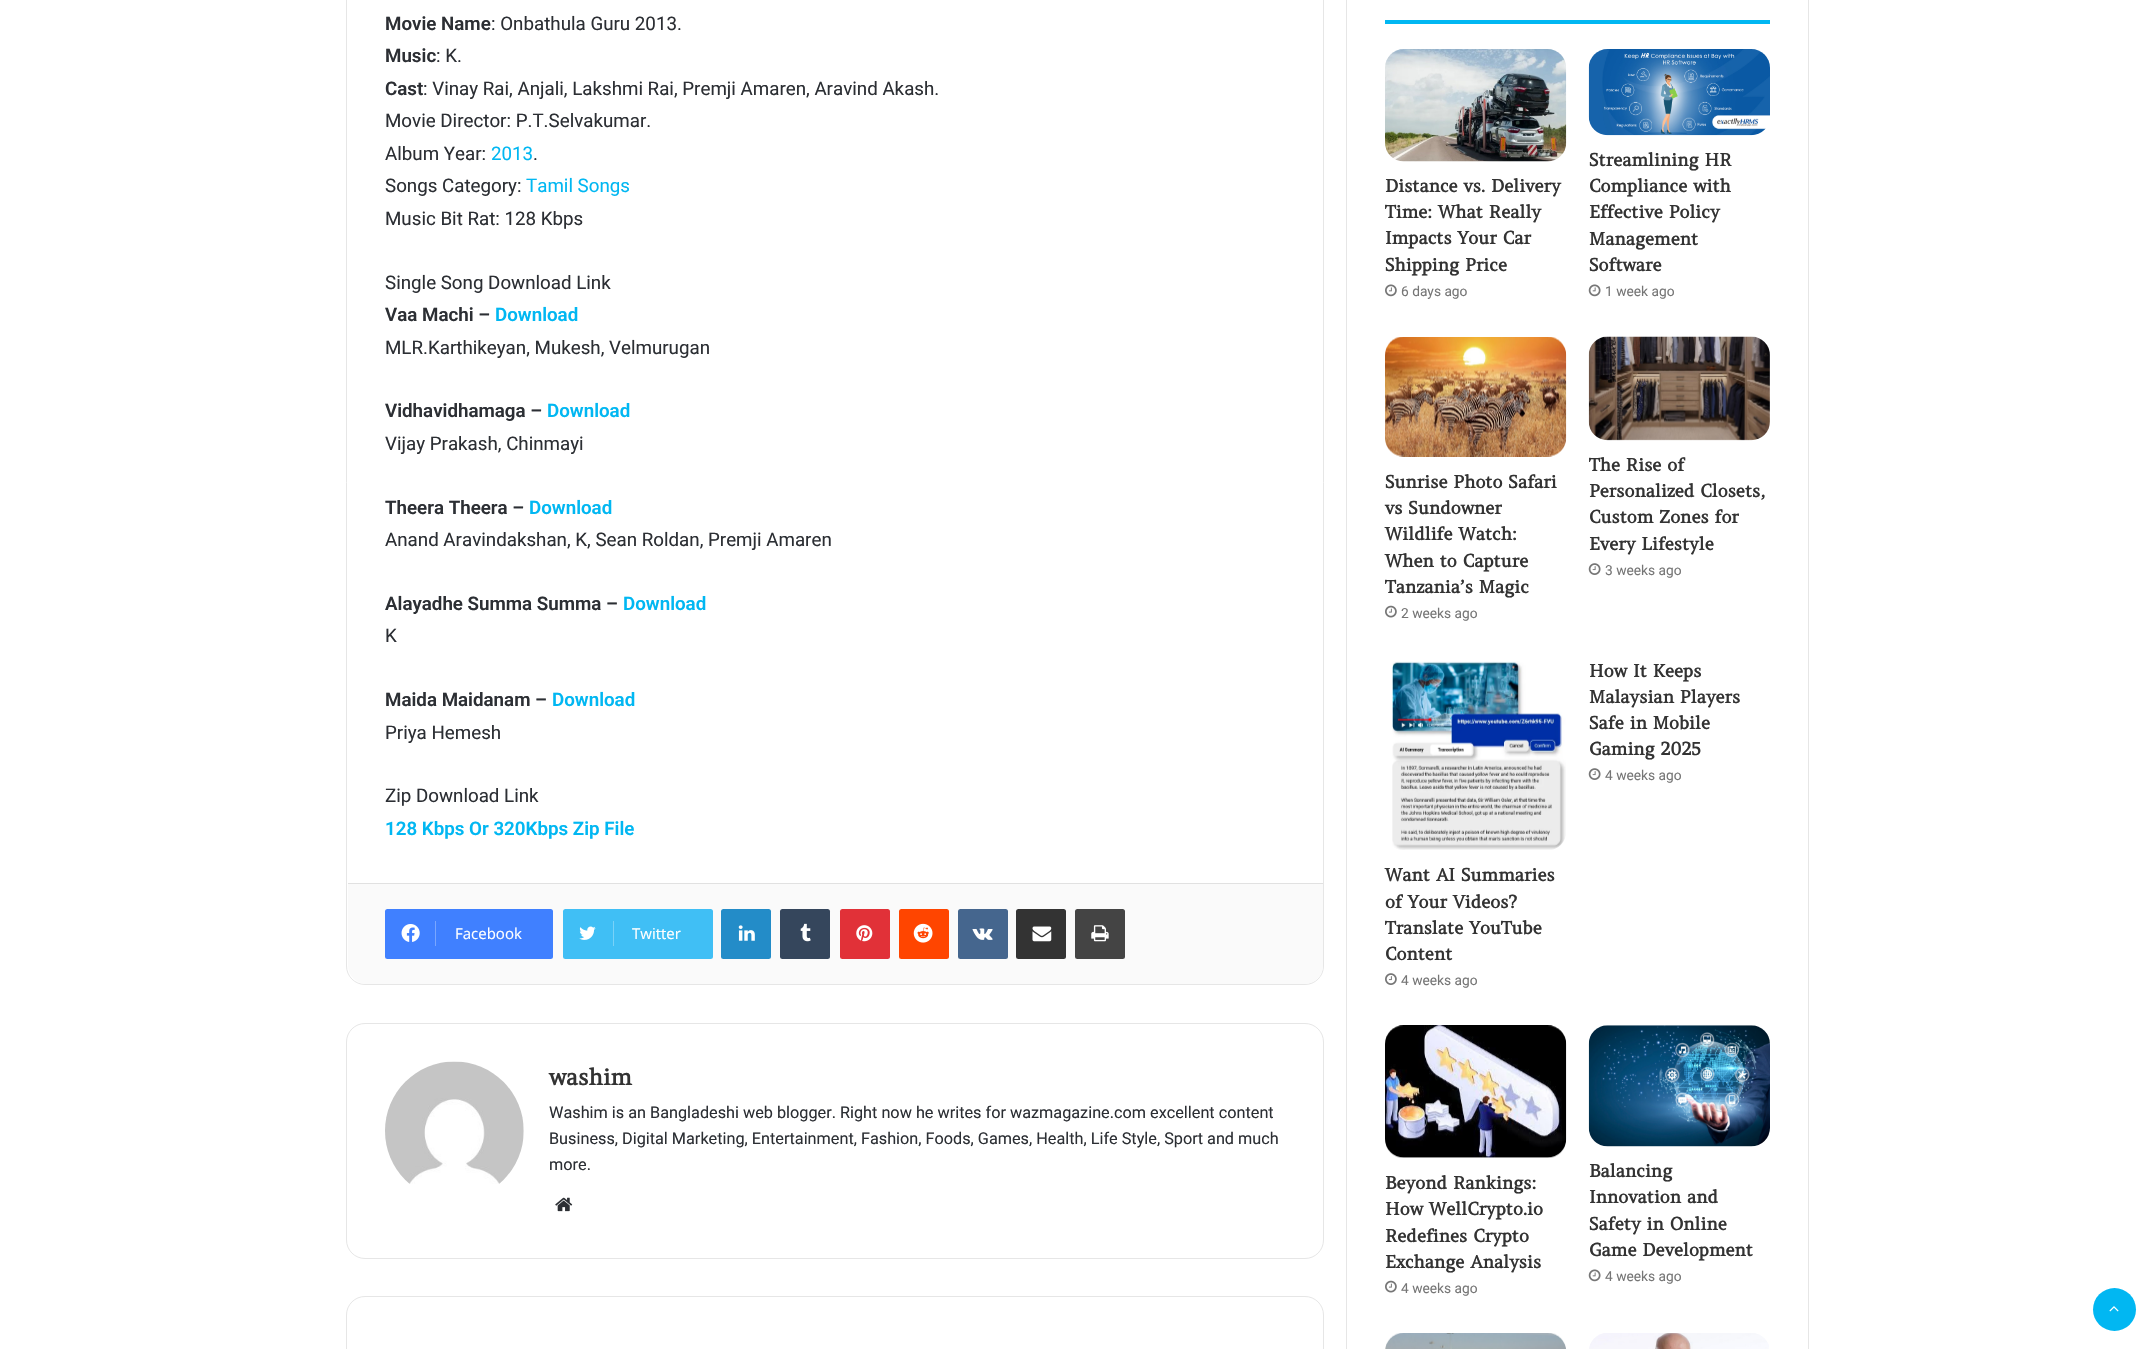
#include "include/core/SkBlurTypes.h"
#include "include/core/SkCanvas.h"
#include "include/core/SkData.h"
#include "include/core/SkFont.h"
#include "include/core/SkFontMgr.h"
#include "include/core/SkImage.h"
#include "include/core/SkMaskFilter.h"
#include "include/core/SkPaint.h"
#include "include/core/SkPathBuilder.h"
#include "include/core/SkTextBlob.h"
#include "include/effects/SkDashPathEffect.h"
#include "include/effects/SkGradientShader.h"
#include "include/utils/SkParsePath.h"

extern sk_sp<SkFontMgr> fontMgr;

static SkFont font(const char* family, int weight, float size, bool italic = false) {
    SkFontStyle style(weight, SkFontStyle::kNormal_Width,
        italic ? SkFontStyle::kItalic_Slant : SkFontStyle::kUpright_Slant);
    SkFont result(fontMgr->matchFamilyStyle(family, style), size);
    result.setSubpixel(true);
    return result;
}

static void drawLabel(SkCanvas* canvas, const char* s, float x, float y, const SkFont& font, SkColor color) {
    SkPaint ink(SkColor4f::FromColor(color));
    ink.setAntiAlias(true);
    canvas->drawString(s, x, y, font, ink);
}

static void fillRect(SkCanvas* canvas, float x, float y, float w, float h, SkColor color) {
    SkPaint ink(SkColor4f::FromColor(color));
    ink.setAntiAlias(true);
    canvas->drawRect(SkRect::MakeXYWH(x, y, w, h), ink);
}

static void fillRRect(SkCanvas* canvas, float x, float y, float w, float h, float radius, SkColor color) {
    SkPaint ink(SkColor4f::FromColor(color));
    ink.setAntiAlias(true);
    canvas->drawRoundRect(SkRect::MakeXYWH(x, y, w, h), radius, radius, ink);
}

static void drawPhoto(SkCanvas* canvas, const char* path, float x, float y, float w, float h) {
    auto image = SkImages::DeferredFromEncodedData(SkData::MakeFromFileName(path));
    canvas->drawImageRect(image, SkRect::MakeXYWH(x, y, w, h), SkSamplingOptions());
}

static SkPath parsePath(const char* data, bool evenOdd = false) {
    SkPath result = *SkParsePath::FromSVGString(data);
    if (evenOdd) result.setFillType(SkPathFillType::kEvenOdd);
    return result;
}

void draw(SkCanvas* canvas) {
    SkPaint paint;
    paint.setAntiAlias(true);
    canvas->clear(0xFFFFFFFF);
    paint.setStroke(true);
    paint.setStrokeWidth(1);
    paint.setColor(0xFFE6E6E6);
    canvas->drawRoundRect(SkRect::MakeXYWH(346.5f, -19.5f, 977, 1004), 18.5f, 18.5f, paint);
    SkFont font1 = font("Roboto", 600, 18.75f);
    drawLabel(canvas, "Movie Name", 385, 30, font1, 0xFF2C2F34);
    SkFont font2 = font("Roboto", 400, 18.75f);
    drawLabel(canvas, ": Onbathula Guru 2013.", 491, 30, font2, 0xFF2C2F34);
    drawLabel(canvas, "Music", 385, 62, font1, 0xFF2C2F34);
    drawLabel(canvas, ": K.", 436, 62, font2, 0xFF2C2F34);
    drawLabel(canvas, "Cast", 385, 95, font1, 0xFF2C2F34);
    drawLabel(canvas, ": Vinay Rai, Anjali, Lakshmi Rai, Premji Amaren, Aravind Akash.", 423, 95, font2, 0xFF2C2F34);
    drawLabel(canvas, "Movie Director: P.T.Selvakumar.", 385, 127, font2, 0xFF2C2F34);
    drawLabel(canvas, "Album Year:", 385, 160, font2, 0xFF2C2F34);
    drawLabel(canvas, "2013", 491, 160, font2, 0xFF01B7F2);
    drawLabel(canvas, ".", 533, 160, font2, 0xFF2C2F34);
    drawLabel(canvas, "Songs Category:", 385, 192, font2, 0xFF2C2F34);
    drawLabel(canvas, "Tamil Songs", 526, 192, font2, 0xFF01B7F2);
    drawLabel(canvas, "Music Bit Rat: 128 Kbps", 385, 225, font2, 0xFF2C2F34);
    drawLabel(canvas, "Single Song Download Link", 385, 289, font2, 0xFF2C2F34);
    drawLabel(canvas, "Vaa Machi –", 385, 321, font1, 0xFF2C2F34);
    drawLabel(canvas, "Download", 495, 321, font1, 0xFF01B7F2);
    drawLabel(canvas, "MLR.Karthikeyan, Mukesh, Velmurugan", 385, 354, font2, 0xFF2C2F34);
    drawLabel(canvas, "Vidhavidhamaga –", 385, 417, font1, 0xFF2C2F34);
    drawLabel(canvas, "Download", 547, 417, font1, 0xFF01B7F2);
    drawLabel(canvas, "Vijay Prakash, Chinmayi", 385, 450, font2, 0xFF2C2F34);
    drawLabel(canvas, "Theera Theera –", 385, 514, font1, 0xFF2C2F34);
    drawLabel(canvas, "Download", 529, 514, font1, 0xFF01B7F2);
    drawLabel(canvas, "Anand Aravindakshan, K, Sean Roldan, Premji Amaren", 385, 546, font2, 0xFF2C2F34);
    drawLabel(canvas, "Alayadhe Summa Summa –", 385, 610, font1, 0xFF2C2F34);
    drawLabel(canvas, "Download", 623, 610, font1, 0xFF01B7F2);
    drawLabel(canvas, "K", 385, 642, font2, 0xFF2C2F34);
    drawLabel(canvas, "Maida Maidanam –", 385, 706, font1, 0xFF2C2F34);
    drawLabel(canvas, "Download", 552, 706, font1, 0xFF01B7F2);
    drawLabel(canvas, "Priya Hemesh", 385, 739, font2, 0xFF2C2F34);
    drawLabel(canvas, "Zip Download Link", 385, 802, font2, 0xFF2C2F34);
    drawLabel(canvas, "128 Kbps Or 320Kbps Zip File", 385, 835, font1, 0xFF01B7F2);
    paint.setStroke(false);
    paint.setColor(0xFFFAFAFA);
    canvas->drawPath(parsePath("M348 883H1323V965C1323 975.5 1314.5 984 1304 984H367C356.5 984 348 975.5 348 965Z"), paint);
    fillRect(canvas, 348, 883, 975, 1, 0xFFE1E1E1);
    fillRRect(canvas, 385, 909, 168, 50, 2.5f, 0xFF4080FF);
    drawPhoto(canvas, "assets/img1.png", 401, 924, 19, 18);
    fillRect(canvas, 435, 921, 1, 25, 0xFF79A6FF);
    SkFont font3 = font("Open Sans", 400, 15);
    drawLabel(canvas, "Facebook", 455, 939, font3, 0xFFFFFFFF);
    fillRRect(canvas, 563, 909, 150, 50, 2.5f, 0xFF40BFF5);
    drawPhoto(canvas, "assets/img2.png", 579, 926, 17, 14);
    fillRect(canvas, 613, 921, 1, 25, 0xFF79D2F8);
    drawLabel(canvas, "Twitter", 632, 939, font3, 0xFFFFFFFF);
    fillRRect(canvas, 721, 909, 50, 50, 2.5f, 0xFF238CC8);
    drawPhoto(canvas, "assets/img3.png", 738, 925, 17, 16);
    fillRRect(canvas, 780, 909, 50, 50, 2.5f, 0xFF35465C);
    drawPhoto(canvas, "assets/img4.png", 800, 923, 11, 19);
    fillRRect(canvas, 840, 909, 50, 50, 2.5f, 0xFFE13138);
    drawPhoto(canvas, "assets/img5.png", 856, 925, 17, 17);
    fillRRect(canvas, 899, 909, 50, 50, 2.5f, 0xFFFF4500);
    drawPhoto(canvas, "assets/img6.png", 913, 923, 20, 20);
    fillRRect(canvas, 958, 909, 50, 50, 2.5f, 0xFF45668E);
    drawPhoto(canvas, "assets/img7.png", 972, 928, 21, 12);
    fillRRect(canvas, 1016, 909, 50, 50, 2.5f, 0xFF333333);
    drawPhoto(canvas, "assets/img8.png", 1032, 926, 20, 16);
    fillRRect(canvas, 1075, 909, 50, 50, 2.5f, 0xFF444444);
    drawPhoto(canvas, "assets/img9.png", 1091, 925, 18, 17);
    paint.setStroke(true);
    paint.setColor(0xFFE6E6E6);
    canvas->drawRoundRect(SkRect::MakeXYWH(346.5f, 1023.5f, 977, 235), 18.5f, 18.5f, paint);
    drawPhoto(canvas, "assets/img10.png", 385, 1061, 139, 123);
    SkFont font4 = font("Amethysta", 700, 22.5f);
    drawLabel(canvas, "washim", 549, 1085, font4, 0xFF333333);
    SkFont font5 = font("Roboto", 400, 16.25f);
    drawLabel(canvas, "Washim is an Bangladeshi web blogger. Right now he writes for wazmagazine.com excellent content", 549, 1118, font5, 0xFF2C2F34);
    drawLabel(canvas, "Business, Digital Marketing, Entertainment, Fashion, Foods, Games, Health, Life Style, Sport and much", 549, 1144, font5, 0xFF2C2F34);
    drawLabel(canvas, "more.", 549, 1170, font5, 0xFF2C2F34);
    drawPhoto(canvas, "assets/img11.png", 555, 1197, 18, 15);
    canvas->drawRoundRect(SkRect::MakeXYWH(346.5f, 1296.5f, 977, 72), 18.5f, 18.5f, paint);
    canvas->drawRect(SkRect::MakeXYWH(1346.5f, -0.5f, 462, 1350), paint);
    fillRect(canvas, 1385, 20, 385, 4, 0xFF01B7F2);
    drawPhoto(canvas, "assets/img12.png", 1385, 49, 182, 113);
    SkFont font6 = font("Amethysta", 700, 17.5f);
    drawLabel(canvas, "Distance vs. Delivery", 1385, 192, font6, 0xFF333333);
    drawLabel(canvas, "Time: What Really", 1385, 218, font6, 0xFF333333);
    drawLabel(canvas, "Impacts Your Car", 1385, 244, font6, 0xFF333333);
    drawLabel(canvas, "Shipping Price", 1385, 271, font6, 0xFF333333);
    drawPhoto(canvas, "assets/img13.png", 1385, 284, 12, 13);
    SkFont font7 = font("Roboto", 400, 13.75f);
    drawLabel(canvas, "6 days ago", 1401, 296, font7, 0xFF767676);
    drawPhoto(canvas, "assets/img14.png", 1588, 49, 182, 87);
    drawLabel(canvas, "Streamlining HR", 1589, 166, font6, 0xFF333333);
    drawLabel(canvas, "Compliance with", 1589, 192, font6, 0xFF333333);
    drawLabel(canvas, "Effective Policy", 1589, 218, font6, 0xFF333333);
    drawLabel(canvas, "Management", 1589, 245, font6, 0xFF333333);
    drawLabel(canvas, "Software", 1589, 271, font6, 0xFF333333);
    drawPhoto(canvas, "assets/img15.png", 1588, 284, 13, 13);
    drawLabel(canvas, "1 week ago", 1605, 296, font7, 0xFF767676);
    drawPhoto(canvas, "assets/img16.png", 1385, 337, 182, 120);
    drawLabel(canvas, "Sunrise Photo Safari", 1385, 488, font6, 0xFF333333);
    drawLabel(canvas, "vs Sundowner", 1385, 514, font6, 0xFF333333);
    drawLabel(canvas, "Wildlife Watch:", 1385, 540, font6, 0xFF333333);
    drawLabel(canvas, "When to Capture", 1385, 567, font6, 0xFF333333);
    drawLabel(canvas, "Tanzania’s Magic", 1385, 593, font6, 0xFF333333);
    drawPhoto(canvas, "assets/img17.png", 1385, 605, 12, 13);
    drawLabel(canvas, "2 weeks ago", 1401, 618, font7, 0xFF767676);
    drawPhoto(canvas, "assets/img18.png", 1588, 336, 182, 105);
    drawLabel(canvas, "The Rise of", 1589, 471, font6, 0xFF333333);
    drawLabel(canvas, "Personalized Closets,", 1589, 497, font6, 0xFF333333);
    drawLabel(canvas, "Custom Zones for", 1589, 523, font6, 0xFF333333);
    drawLabel(canvas, "Every Lifestyle", 1589, 550, font6, 0xFF333333);
    drawPhoto(canvas, "assets/img19.png", 1588, 563, 13, 12);
    drawLabel(canvas, "3 weeks ago", 1605, 575, font7, 0xFF767676);
    drawLabel(canvas, "How It Keeps", 1589, 677, font6, 0xFF333333);
    drawLabel(canvas, "Malaysian Players", 1589, 703, font6, 0xFF333333);
    drawLabel(canvas, "Safe in Mobile", 1589, 729, font6, 0xFF333333);
    drawLabel(canvas, "Gaming 2025", 1589, 755, font6, 0xFF333333);
    drawPhoto(canvas, "assets/img19.png", 1588, 768, 13, 12);
    drawLabel(canvas, "4 weeks ago", 1605, 780, font7, 0xFF767676);
    drawPhoto(canvas, "assets/img20.png", 1392, 661, 174, 189);
    drawLabel(canvas, "Want AI Summaries", 1385, 881, font6, 0xFF333333);
    drawLabel(canvas, "of Your Videos?", 1385, 908, font6, 0xFF333333);
    drawLabel(canvas, "Translate YouTube", 1385, 934, font6, 0xFF333333);
    drawLabel(canvas, "Content", 1385, 960, font6, 0xFF333333);
    drawPhoto(canvas, "assets/img21.png", 1385, 973, 12, 12);
    drawLabel(canvas, "4 weeks ago", 1401, 985, font7, 0xFF767676);
    drawPhoto(canvas, "assets/img22.png", 1385, 1025, 182, 133);
    drawLabel(canvas, "Beyond Rankings:", 1385, 1189, font6, 0xFF333333);
    drawLabel(canvas, "How WellCrypto.io", 1385, 1215, font6, 0xFF333333);
    drawLabel(canvas, "Redefines Crypto", 1385, 1242, font6, 0xFF333333);
    drawLabel(canvas, "Exchange Analysis", 1385, 1268, font6, 0xFF333333);
    drawPhoto(canvas, "assets/img17.png", 1385, 1280, 12, 13);
    drawLabel(canvas, "4 weeks ago", 1401, 1293, font7, 0xFF767676);
    drawPhoto(canvas, "assets/img23.png", 1588, 1025, 182, 122);
    drawLabel(canvas, "Balancing", 1589, 1177, font6, 0xFF333333);
    drawLabel(canvas, "Innovation and", 1589, 1203, font6, 0xFF333333);
    drawLabel(canvas, "Safety in Online", 1589, 1230, font6, 0xFF333333);
    drawLabel(canvas, "Game Development", 1589, 1256, font6, 0xFF333333);
    drawPhoto(canvas, "assets/img15.png", 1588, 1269, 13, 13);
    drawLabel(canvas, "4 weeks ago", 1605, 1281, font7, 0xFF767676);
    drawPhoto(canvas, "assets/img24.png", 1385, 1333, 181, 16);
    drawPhoto(canvas, "assets/img25.png", 1589, 1333, 180, 16);
    paint.setStroke(false);
    paint.setColor(0xFF01B7F2);
    canvas->drawCircle(2114.5f, 1309.5f, 21.5f, paint);
    drawPhoto(canvas, "assets/img26.png", 2109, 1306, 10, 6);
}
